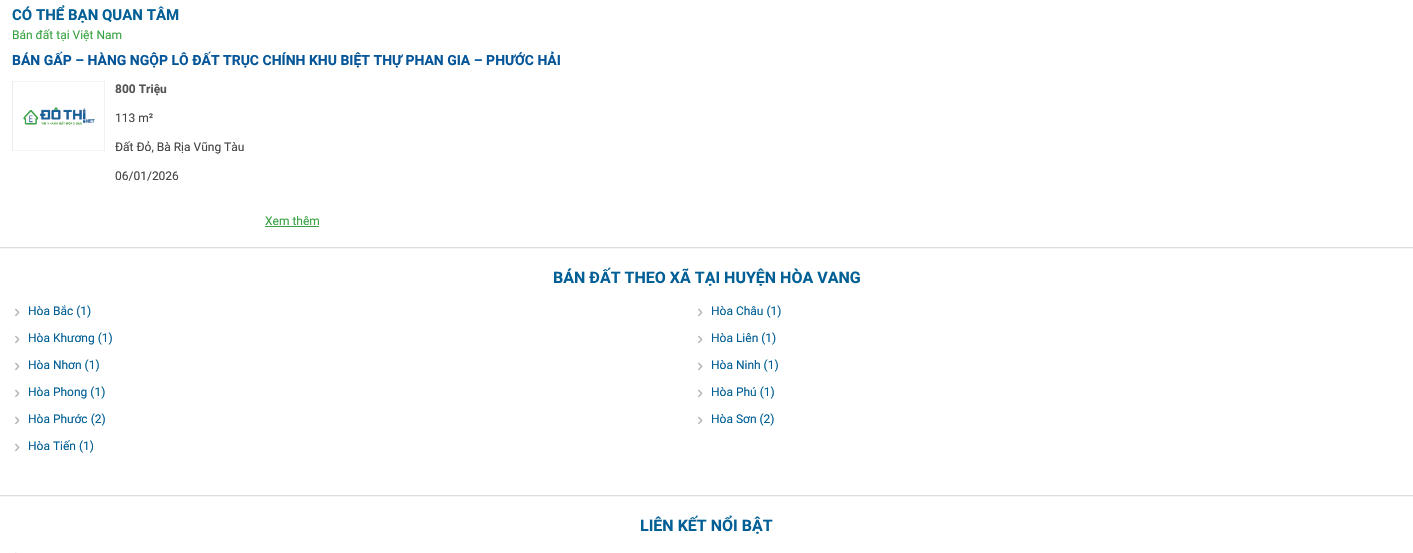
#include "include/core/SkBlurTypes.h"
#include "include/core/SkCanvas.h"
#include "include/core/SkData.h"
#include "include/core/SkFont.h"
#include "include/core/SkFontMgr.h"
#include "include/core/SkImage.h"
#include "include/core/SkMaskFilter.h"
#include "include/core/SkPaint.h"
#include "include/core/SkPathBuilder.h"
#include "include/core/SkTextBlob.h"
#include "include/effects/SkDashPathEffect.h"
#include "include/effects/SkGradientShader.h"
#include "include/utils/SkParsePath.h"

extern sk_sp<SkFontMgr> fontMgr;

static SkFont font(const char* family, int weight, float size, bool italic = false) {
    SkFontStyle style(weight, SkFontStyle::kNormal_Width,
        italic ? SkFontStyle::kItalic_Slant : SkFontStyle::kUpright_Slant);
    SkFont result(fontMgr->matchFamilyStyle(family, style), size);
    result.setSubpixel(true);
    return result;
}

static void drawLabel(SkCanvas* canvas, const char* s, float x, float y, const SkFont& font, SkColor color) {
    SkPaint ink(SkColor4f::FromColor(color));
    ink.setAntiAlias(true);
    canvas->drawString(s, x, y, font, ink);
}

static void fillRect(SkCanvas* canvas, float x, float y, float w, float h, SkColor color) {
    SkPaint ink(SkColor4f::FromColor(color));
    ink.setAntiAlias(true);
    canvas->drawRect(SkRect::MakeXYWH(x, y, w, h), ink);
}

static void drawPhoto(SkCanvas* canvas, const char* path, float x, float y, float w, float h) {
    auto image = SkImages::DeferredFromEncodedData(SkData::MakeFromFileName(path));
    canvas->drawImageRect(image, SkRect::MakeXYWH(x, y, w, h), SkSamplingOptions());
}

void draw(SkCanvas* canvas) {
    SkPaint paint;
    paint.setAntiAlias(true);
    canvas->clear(0xFFFFFFFF);
    SkFont font1 = font("Roboto", 700, 15);
    drawLabel(canvas, "CÓ THỂ BẠN QUAN TÂM", 12, 20, font1, 0xFF015F95);
    SkFont font2 = font("Roboto", 400, 12);
    drawLabel(canvas, "Bán đất tại Việt Nam", 12, 39, font2, 0xFF3AA344);
    SkFont font3 = font("Roboto", 700, 14);
    drawLabel(canvas, "BÁN GẤP – HÀNG NGỘP LÔ ĐẤT TRỤC CHÍNH KHU BIỆT THỰ PHAN GIA – PHƯỚC HẢI", 12, 65, font3, 0xFF055699);
    drawPhoto(canvas, "assets/img1.png", 12, 81, 93, 70);
    SkFont font4 = font("Roboto", 700, 12);
    drawLabel(canvas, "800 Triệu", 115, 93, font4, 0xFF555555);
    drawLabel(canvas, "113 m²", 115, 122, font2, 0xFF444444);
    drawLabel(canvas, "Đất Đỏ, Bà Rịa Vũng Tàu", 115, 151, font2, 0xFF444444);
    drawLabel(canvas, "06/01/2026", 115, 180, font2, 0xFF444444);
    drawLabel(canvas, "Xem thêm", 265, 225, font2, 0xFF3AA344);
    fillRect(canvas, 265, 226, 54, 1, 0xFF37A244);
    fillRect(canvas, 0, 247, 1413, 1, 0xFFDDDDDD);
    fillRect(canvas, 0, 248, 1413, 1, 0xFFF6F6F6);
    SkFont font5 = font("Roboto", 700, 16);
    drawLabel(canvas, "BÁN ĐẤT THEO XÃ TẠI HUYỆN HÒA VANG", 553, 283, font5, 0xFF015F95);
    drawPhoto(canvas, "assets/img2.png", 15, 308, 5, 9);
    drawLabel(canvas, "Hòa Bắc (1)", 28, 315, font2, 0xFF015F95);
    drawPhoto(canvas, "assets/img2.png", 698, 308, 5, 9);
    drawLabel(canvas, "Hòa Châu (1)", 711, 315, font2, 0xFF015F95);
    drawPhoto(canvas, "assets/img2.png", 15, 335, 5, 9);
    drawLabel(canvas, "Hòa Khương (1)", 28, 342, font2, 0xFF015F95);
    drawPhoto(canvas, "assets/img2.png", 698, 335, 5, 9);
    drawLabel(canvas, "Hòa Liên (1)", 711, 342, font2, 0xFF015F95);
    drawPhoto(canvas, "assets/img2.png", 15, 362, 5, 9);
    drawLabel(canvas, "Hòa Nhơn (1)", 28, 369, font2, 0xFF015F95);
    drawPhoto(canvas, "assets/img2.png", 698, 362, 5, 9);
    drawLabel(canvas, "Hòa Ninh (1)", 711, 369, font2, 0xFF015F95);
    drawPhoto(canvas, "assets/img2.png", 15, 389, 5, 9);
    drawLabel(canvas, "Hòa Phong (1)", 28, 396, font2, 0xFF015F95);
    drawPhoto(canvas, "assets/img2.png", 698, 389, 5, 9);
    drawLabel(canvas, "Hòa Phú (1)", 711, 396, font2, 0xFF015F95);
    drawPhoto(canvas, "assets/img2.png", 15, 416, 5, 9);
    drawLabel(canvas, "Hòa Phước (2)", 28, 423, font2, 0xFF015F95);
    drawPhoto(canvas, "assets/img2.png", 698, 416, 5, 9);
    drawLabel(canvas, "Hòa Sơn (2)", 711, 423, font2, 0xFF015F95);
    drawPhoto(canvas, "assets/img2.png", 15, 443, 5, 9);
    drawLabel(canvas, "Hòa Tiến (1)", 28, 450, font2, 0xFF015F95);
    fillRect(canvas, 0, 495, 1413, 1, 0xFFDDDDDD);
    fillRect(canvas, 0, 496, 1413, 1, 0xFFF6F6F6);
    drawLabel(canvas, "LIÊN KẾT NỔI BẬT", 640, 531, font5, 0xFF015F95);
    drawPhoto(canvas, "assets/img3.png", 15, 552, 2, 1);
}
